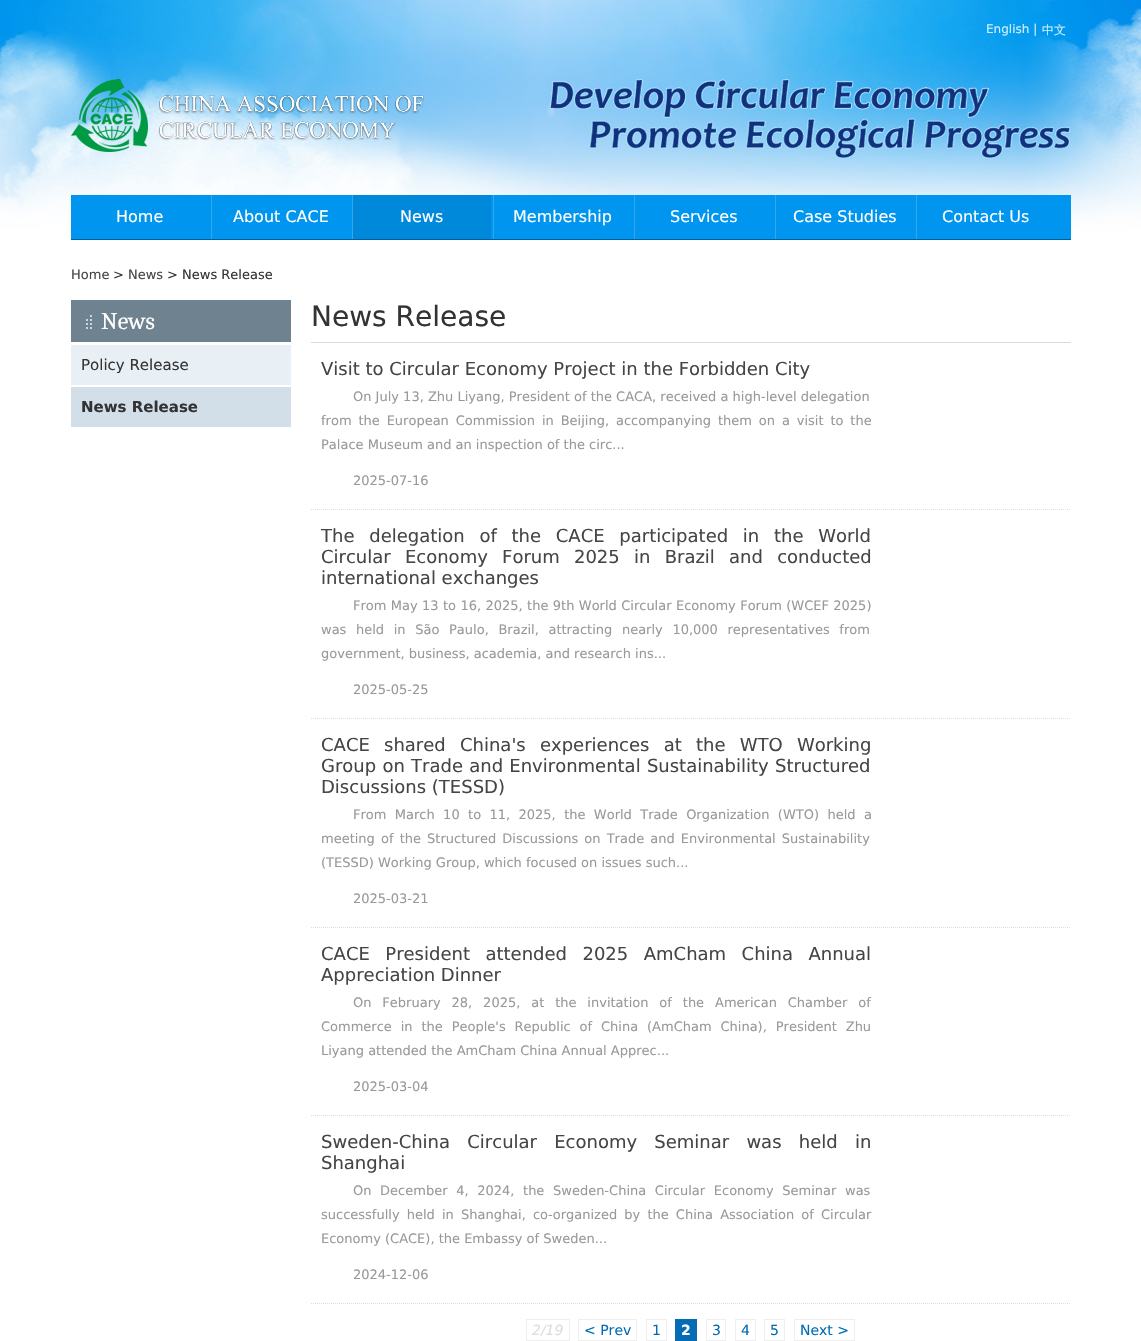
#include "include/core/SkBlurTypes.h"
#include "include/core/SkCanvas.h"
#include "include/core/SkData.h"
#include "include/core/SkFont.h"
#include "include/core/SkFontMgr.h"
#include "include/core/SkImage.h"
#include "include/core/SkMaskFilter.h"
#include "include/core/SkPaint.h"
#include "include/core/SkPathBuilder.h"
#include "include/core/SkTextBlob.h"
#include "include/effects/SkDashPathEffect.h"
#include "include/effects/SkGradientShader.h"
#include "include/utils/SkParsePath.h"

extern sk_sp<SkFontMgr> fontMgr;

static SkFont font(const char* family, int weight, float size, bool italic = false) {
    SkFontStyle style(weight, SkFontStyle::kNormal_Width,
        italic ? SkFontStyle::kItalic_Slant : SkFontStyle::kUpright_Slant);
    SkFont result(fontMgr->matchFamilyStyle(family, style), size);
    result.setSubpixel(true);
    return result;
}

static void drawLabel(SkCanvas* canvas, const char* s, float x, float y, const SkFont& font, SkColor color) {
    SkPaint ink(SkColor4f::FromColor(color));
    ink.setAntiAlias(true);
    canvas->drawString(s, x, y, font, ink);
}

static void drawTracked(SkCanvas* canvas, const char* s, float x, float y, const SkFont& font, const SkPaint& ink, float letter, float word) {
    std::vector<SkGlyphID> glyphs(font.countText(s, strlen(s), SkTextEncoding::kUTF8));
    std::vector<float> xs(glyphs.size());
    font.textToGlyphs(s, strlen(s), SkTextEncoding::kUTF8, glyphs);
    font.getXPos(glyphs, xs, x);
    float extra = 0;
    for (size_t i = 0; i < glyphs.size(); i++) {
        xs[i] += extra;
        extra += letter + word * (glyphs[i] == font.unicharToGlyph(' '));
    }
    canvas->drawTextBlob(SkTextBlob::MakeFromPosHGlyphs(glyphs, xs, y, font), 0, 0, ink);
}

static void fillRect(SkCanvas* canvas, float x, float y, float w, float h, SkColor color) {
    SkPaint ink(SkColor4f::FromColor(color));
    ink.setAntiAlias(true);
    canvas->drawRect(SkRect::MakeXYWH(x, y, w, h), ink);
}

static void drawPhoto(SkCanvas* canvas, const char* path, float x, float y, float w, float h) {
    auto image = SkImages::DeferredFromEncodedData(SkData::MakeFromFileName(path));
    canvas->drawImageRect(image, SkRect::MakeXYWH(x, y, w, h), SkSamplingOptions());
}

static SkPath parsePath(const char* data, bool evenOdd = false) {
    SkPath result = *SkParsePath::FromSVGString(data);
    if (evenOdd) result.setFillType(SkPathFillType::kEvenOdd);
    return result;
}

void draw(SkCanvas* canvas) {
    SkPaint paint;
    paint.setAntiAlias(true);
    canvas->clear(0xFFFFFFFF);
    drawPhoto(canvas, "assets/img1.png", 0, 0, 1141, 345);
    SkFont font1 = font("DejaVu Sans", 400, 12);
    drawLabel(canvas, "English |", 986, 33, font1, 0xFFCDEDFF);
    SkFont font2 = font("WenQuanYi Zen Hei", 500, 12);
    drawLabel(canvas, "中文", 1042, 34, font2, 0xFFCDEDFF);
    drawPhoto(canvas, "assets/img2.png", 71, 79, 354, 73);
    drawPhoto(canvas, "assets/img3.png", 549, 79, 522, 80);
    fillRect(canvas, 71, 195, 1000, 44, 0xFF0095EE);
    fillRect(canvas, 71, 239, 1000, 1, 0xFF00629D);
    fillRect(canvas, 211, 195, 1, 44, 0xFF31A7EE);
    SkFont font3 = font("DejaVu Sans", 400, 16);
    drawLabel(canvas, "Home", 116, 222, font3, 0xFFFFFFFF);
    fillRect(canvas, 352, 195, 1, 44, 0xFF31A7EE);
    drawLabel(canvas, "About CACE", 233, 222, font3, 0xFFFFFFFF);
    fillRect(canvas, 493, 195, 1, 44, 0xFF31A7EE);
    fillRect(canvas, 353, 195, 138, 44, 0xFF0089DB);
    drawLabel(canvas, "News", 400, 222, font3, 0xFFFFFFFF);
    fillRect(canvas, 634, 195, 1, 44, 0xFF31A7EE);
    drawLabel(canvas, "Membership", 513, 222, font3, 0xFFFFFFFF);
    fillRect(canvas, 775, 195, 1, 44, 0xFF31A7EE);
    drawLabel(canvas, "Services", 670, 222, font3, 0xFFFFFFFF);
    fillRect(canvas, 916, 195, 1, 44, 0xFF31A7EE);
    drawLabel(canvas, "Case Studies", 793, 222, font3, 0xFFFFFFFF);
    drawLabel(canvas, "Contact Us", 942, 222, font3, 0xFFFFFFFF);
    SkFont font4 = font("DejaVu Sans", 400, 13);
    drawLabel(canvas, "Home", 71, 279, font4, 0xFF454545);
    drawLabel(canvas, ">", 113, 279, font4, 0xFF333333);
    drawLabel(canvas, "News", 128, 279, font4, 0xFF454545);
    drawLabel(canvas, "> News Release", 167, 279, font4, 0xFF333333);
    fillRect(canvas, 71, 300, 220, 42, 0xFF6F8290);
    drawPhoto(canvas, "assets/img4.png", 86, 315, 6, 14);
    SkFont font5 = font("Caladea", 400, 24);
    drawLabel(canvas, "News", 101, 329, font5, 0xFFFFFFFF);
    fillRect(canvas, 71, 345, 220, 40, 0xFFE8F0F6);
    SkFont font6 = font("DejaVu Sans", 400, 15);
    drawLabel(canvas, "Policy Release", 81, 370, font6, 0xFF333333);
    fillRect(canvas, 71, 387, 220, 40, 0xFFD2DFE9);
    SkFont font7 = font("DejaVu Sans", 700, 15);
    drawLabel(canvas, "News Release", 81, 412, font7, 0xFF333333);
    fillRect(canvas, 311, 342, 760, 1, 0xFFD4DDE4);
    SkFont font8 = font("DejaVu Sans", 400, 28);
    drawLabel(canvas, "News Release", 311, 326, font8, 0xFF333333);
    paint.setStroke(true);
    paint.setStrokeWidth(1);
    paint.setColor(0xFFD0E2ED);
    paint.setPathEffect(SkDashPathEffect::Make({{1, 1}}, 0));
    canvas->drawPath(parsePath("M311 509.5H1071"), paint);
    paint.setPathEffect(nullptr);
    SkFont font9 = font("DejaVu Sans", 400, 18);
    drawLabel(canvas, "Visit to Circular Economy Project in the Forbidden City", 321, 375, font9, 0xFF454545);
    drawLabel(canvas, "On July 13, Zhu Liyang, President of the CACA, received a high-level delegation", 353, 401, font4, 0xFF999999);
    paint.setStroke(false);
    paint.setColor(0xFF999999);
    drawTracked(canvas, "from the European Commission in Beijing, accompanying them on a visit to the", 321, 425, font4, paint, 0, 2.75f);
    drawLabel(canvas, "Palace Museum and an inspection of the circ...", 321, 449, font4, 0xFF999999);
    drawLabel(canvas, "2025-07-16", 353, 485, font4, 0xFF999999);
    paint.setStroke(true);
    paint.setColor(0xFFD0E2ED);
    paint.setPathEffect(SkDashPathEffect::Make({{1, 1}}, 0));
    canvas->drawPath(parsePath("M311 718.5H1071"), paint);
    paint.setPathEffect(nullptr);
    paint.setStroke(false);
    paint.setColor(0xFF454545);
    drawTracked(canvas, "The delegation of the CACE participated in the World", 321, 542, font9, paint, 0, 9);
    drawTracked(canvas, "Circular Economy Forum 2025 in Brazil and conducted", 321, 563, font9, paint, 0, 8.5f);
    drawLabel(canvas, "international exchanges", 321, 584, font9, 0xFF454545);
    paint.setColor(0xFF999999);
    drawTracked(canvas, "From May 13 to 16, 2025, the 9th World Circular Economy Forum (WCEF 2025)", 353, 610, font4, paint, 0, 0.25f);
    drawTracked(canvas, "was held in São Paulo, Brazil, attracting nearly 10,000 representatives from", 321, 634, font4, paint, 0, 5.5f);
    drawLabel(canvas, "government, business, academia, and research ins...", 321, 658, font4, 0xFF999999);
    drawLabel(canvas, "2025-05-25", 353, 694, font4, 0xFF999999);
    paint.setStroke(true);
    paint.setColor(0xFFD0E2ED);
    paint.setPathEffect(SkDashPathEffect::Make({{1, 1}}, 0));
    canvas->drawPath(parsePath("M311 927.5H1071"), paint);
    paint.setPathEffect(nullptr);
    paint.setStroke(false);
    paint.setColor(0xFF454545);
    drawTracked(canvas, "CACE shared China's experiences at the WTO Working", 321, 751, font9, paint, 0, 8.5f);
    drawTracked(canvas, "Group on Trade and Environmental Sustainability Structured", 321, 772, font9, paint, 0, 0.5f);
    drawLabel(canvas, "Discussions (TESSD)", 321, 793, font9, 0xFF454545);
    paint.setColor(0xFF999999);
    drawTracked(canvas, "From March 10 to 11, 2025, the World Trade Organization (WTO) held a", 353, 819, font4, paint, 0, 4.25f);
    drawTracked(canvas, "meeting of the Structured Discussions on Trade and Environmental Sustainability", 321, 843, font4, paint, 0, 2);
    drawLabel(canvas, "(TESSD) Working Group, which focused on issues such...", 321, 867, font4, 0xFF999999);
    drawLabel(canvas, "2025-03-21", 353, 903, font4, 0xFF999999);
    paint.setStroke(true);
    paint.setColor(0xFFD0E2ED);
    paint.setPathEffect(SkDashPathEffect::Make({{1, 1}}, 0));
    canvas->drawPath(parsePath("M311 1115.5H1071"), paint);
    paint.setPathEffect(nullptr);
    paint.setStroke(false);
    paint.setColor(0xFF454545);
    drawTracked(canvas, "CACE President attended 2025 AmCham China Annual", 321, 960, font9, paint, 0, 9.75f);
    drawLabel(canvas, "Appreciation Dinner", 321, 981, font9, 0xFF454545);
    paint.setColor(0xFF999999);
    drawTracked(canvas, "On February 28, 2025, at the invitation of the American Chamber of", 353, 1007, font4, paint, 0, 6.75f);
    drawTracked(canvas, "Commerce in the People's Republic of China (AmCham China), President Zhu", 321, 1031, font4, paint, 0, 4.75f);
    drawLabel(canvas, "Liyang attended the AmCham China Annual Apprec...", 321, 1055, font4, 0xFF999999);
    drawLabel(canvas, "2025-03-04", 353, 1091, font4, 0xFF999999);
    paint.setStroke(true);
    paint.setColor(0xFFD0E2ED);
    paint.setPathEffect(SkDashPathEffect::Make({{1, 1}}, 0));
    canvas->drawPath(parsePath("M311 1303.5H1071"), paint);
    paint.setPathEffect(nullptr);
    paint.setStroke(false);
    paint.setColor(0xFF454545);
    drawTracked(canvas, "Sweden-China Circular Economy Seminar was held in", 321, 1148, font9, paint, 0, 11.5f);
    drawLabel(canvas, "Shanghai", 321, 1169, font9, 0xFF454545);
    paint.setColor(0xFF999999);
    drawTracked(canvas, "On December 4, 2024, the Sweden-China Circular Economy Seminar was", 353, 1195, font4, paint, 0, 4.5f);
    drawTracked(canvas, "successfully held in Shanghai, co-organized by the China Association of Circular", 321, 1219, font4, paint, 0, 3);
    drawLabel(canvas, "Economy (CACE), the Embassy of Sweden...", 321, 1243, font4, 0xFF999999);
    drawLabel(canvas, "2024-12-06", 353, 1279, font4, 0xFF999999);
    paint.setStroke(true);
    paint.setColor(0xFFEEEEEE);
    canvas->drawRect(SkRect::MakeXYWH(526.5f, 1319.5f, 43, 21), paint);
    SkFont font10 = font("DejaVu Sans", 400, 14, true);
    drawLabel(canvas, "2/19", 532, 1335, font10, 0xFFDDDDDD);
    canvas->drawRect(SkRect::MakeXYWH(578.5f, 1319.5f, 58, 21), paint);
    SkFont font11 = font("DejaVu Sans", 400, 14);
    drawLabel(canvas, "< Prev", 584, 1335, font11, 0xFF036CB4);
    canvas->drawRect(SkRect::MakeXYWH(646.5f, 1319.5f, 20, 21), paint);
    drawLabel(canvas, "1", 652, 1335, font11, 0xFF036CB4);
    fillRect(canvas, 675, 1319, 22, 22, 0xFF036CB4);
    SkFont font12 = font("DejaVu Sans", 700, 14);
    drawLabel(canvas, "2", 681, 1335, font12, 0xFFFFFFFF);
    canvas->drawRect(SkRect::MakeXYWH(706.5f, 1319.5f, 19, 21), paint);
    drawLabel(canvas, "3", 712, 1335, font11, 0xFF036CB4);
    canvas->drawRect(SkRect::MakeXYWH(735.5f, 1319.5f, 20, 21), paint);
    drawLabel(canvas, "4", 741, 1335, font11, 0xFF036CB4);
    canvas->drawRect(SkRect::MakeXYWH(764.5f, 1319.5f, 20, 21), paint);
    drawLabel(canvas, "5", 770, 1335, font11, 0xFF036CB4);
    canvas->drawRect(SkRect::MakeXYWH(794.5f, 1319.5f, 60, 21), paint);
    drawLabel(canvas, "Next >", 800, 1335, font11, 0xFF036CB4);
}
